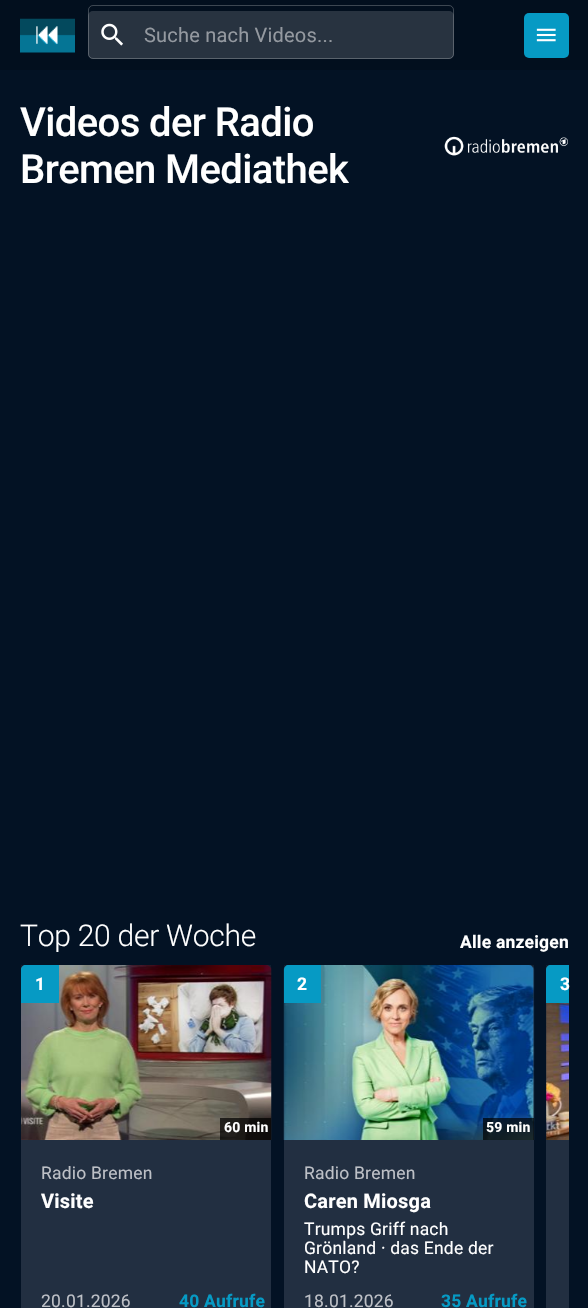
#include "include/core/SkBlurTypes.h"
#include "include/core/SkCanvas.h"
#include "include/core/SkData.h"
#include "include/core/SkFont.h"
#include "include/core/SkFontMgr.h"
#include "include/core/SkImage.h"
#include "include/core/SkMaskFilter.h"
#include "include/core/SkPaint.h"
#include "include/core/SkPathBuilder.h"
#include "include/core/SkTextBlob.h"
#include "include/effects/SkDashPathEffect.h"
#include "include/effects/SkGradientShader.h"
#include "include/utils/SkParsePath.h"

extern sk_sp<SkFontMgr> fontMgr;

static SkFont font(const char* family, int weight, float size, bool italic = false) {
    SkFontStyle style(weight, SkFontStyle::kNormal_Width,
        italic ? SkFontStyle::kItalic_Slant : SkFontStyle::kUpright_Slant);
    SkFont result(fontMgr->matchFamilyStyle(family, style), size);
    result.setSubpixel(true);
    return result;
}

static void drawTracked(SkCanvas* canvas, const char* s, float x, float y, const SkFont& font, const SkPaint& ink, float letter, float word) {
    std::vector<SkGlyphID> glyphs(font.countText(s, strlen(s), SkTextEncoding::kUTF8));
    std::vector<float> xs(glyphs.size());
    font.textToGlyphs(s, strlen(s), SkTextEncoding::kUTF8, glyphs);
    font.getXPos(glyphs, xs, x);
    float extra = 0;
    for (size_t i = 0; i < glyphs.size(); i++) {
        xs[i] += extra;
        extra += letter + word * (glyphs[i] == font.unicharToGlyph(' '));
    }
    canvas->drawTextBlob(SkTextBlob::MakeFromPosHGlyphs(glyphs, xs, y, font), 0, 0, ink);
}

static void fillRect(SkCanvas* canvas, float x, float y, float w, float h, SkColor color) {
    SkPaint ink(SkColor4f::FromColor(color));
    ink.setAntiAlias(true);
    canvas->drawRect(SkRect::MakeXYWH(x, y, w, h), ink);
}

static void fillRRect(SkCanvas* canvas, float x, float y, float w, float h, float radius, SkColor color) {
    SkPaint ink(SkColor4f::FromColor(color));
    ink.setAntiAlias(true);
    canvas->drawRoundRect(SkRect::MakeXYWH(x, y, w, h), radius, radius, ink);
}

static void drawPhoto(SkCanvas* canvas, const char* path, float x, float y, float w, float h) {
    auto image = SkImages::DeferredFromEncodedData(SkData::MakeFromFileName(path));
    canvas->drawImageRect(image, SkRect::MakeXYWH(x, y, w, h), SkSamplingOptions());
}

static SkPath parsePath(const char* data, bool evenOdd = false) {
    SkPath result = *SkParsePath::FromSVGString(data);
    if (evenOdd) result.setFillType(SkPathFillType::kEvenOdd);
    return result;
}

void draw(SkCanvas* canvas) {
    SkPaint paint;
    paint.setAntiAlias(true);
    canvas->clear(0xFF031224);
    fillRect(canvas, 0, 0, 588, 70, 0xFF020F1E);
    drawPhoto(canvas, "assets/img1.png", 20, 18, 55, 35);
    fillRRect(canvas, 88, 11, 366, 48, 5, 0xFF283340);
    drawPhoto(canvas, "assets/img2.png", 101, 23, 22, 23);
    paint.setStroke(true);
    paint.setStrokeWidth(1);
    paint.setColor(0x3BFFFFFF);
    canvas->drawRoundRect(SkRect::MakeXYWH(88.5f, 5.5f, 365, 53), 4.5f, 4.5f, paint);
    SkFont font1 = font("Roboto", 400, 20);
    paint.setStroke(false);
    paint.setColor(0xFF9499A0);
    drawTracked(canvas, "Suche nach Videos...", 144, 42, font1, paint, 0.2f, 0);
    fillRRect(canvas, 524, 13, 45, 45, 5, 0xFF069AC4);
    drawPhoto(canvas, "assets/img3.png", 536, 28, 20, 14);
    SkFont font2 = font("Roboto", 500, 40);
    paint.setColor(0xFFFFFFFF);
    drawTracked(canvas, "Videos der Radio", 20, 136, font2, paint, -0.6f, 0);
    drawTracked(canvas, "Bremen Mediathek", 20, 183, font2, paint, -0.6f, 0);
    drawPhoto(canvas, "assets/img4.png", 444, 136, 124, 20);
    SkFont font3 = font("Roboto", 300, 30);
    drawTracked(canvas, "Top 20 der Woche", 20, 946, font3, paint, -0.25f, 0);
    SkFont font4 = font("Roboto", 700, 17.5f);
    drawTracked(canvas, "Alle anzeigen", 460, 948, font4, paint, 0.2f, 0);
    fillRRect(canvas, 21, 965, 250, 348, 5, 0xFF162336);
    fillRect(canvas, 21, 965, 250, 343, 0x0DFFFFFF);
    drawPhoto(canvas, "assets/img5.png", 21, 965, 251, 175);
    paint.setColor(0xFF069AC4);
    canvas->drawPath(parsePath("M26 965H59V1003H21V970C21 967 23 965 26 965Z"), paint);
    paint.setColor(0xFFFFFFFF);
    drawTracked(canvas, "1", 35, 990, font4, paint, 0.2f, 0);
    fillRect(canvas, 220, 1118, 51, 22, 0xB3000000);
    SkFont font5 = font("Roboto", 700, 14);
    drawTracked(canvas, "60 min", 224, 1132, font5, paint, 0.2f, 0);
    SkFont font6 = font("Roboto", 400, 17.5f);
    paint.setColor(0xFFBDC0C6);
    drawTracked(canvas, "Radio Bremen", 41, 1179, font6, paint, 0.2f, 0);
    SkFont font7 = font("Roboto", 700, 20);
    paint.setColor(0xFFFFFFFF);
    drawTracked(canvas, "Visite", 41, 1208, font7, paint, 0.2f, 0);
    paint.setColor(0xFFBDC0C6);
    drawTracked(canvas, "20.01.2026", 41, 1307, font6, paint, 0.2f, 0);
    paint.setColor(0xFF069AC4);
    drawTracked(canvas, "40 Aufrufe", 179, 1307, font4, paint, 0.2f, 0);
    fillRRect(canvas, 284, 965, 250, 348, 5, 0xFF162336);
    fillRect(canvas, 284, 965, 250, 343, 0x0DFFFFFF);
    drawPhoto(canvas, "assets/img6.png", 283, 965, 252, 175);
    canvas->drawPath(parsePath("M289 965H321V1003H284V970C284 967 286 965 289 965Z"), paint);
    paint.setColor(0xFFFFFFFF);
    drawTracked(canvas, "2", 297, 990, font4, paint, 0.2f, 0);
    fillRect(canvas, 483, 1118, 51, 22, 0xB3000000);
    drawTracked(canvas, "59 min", 486, 1132, font5, paint, 0.2f, 0);
    paint.setColor(0xFFBDC0C6);
    drawTracked(canvas, "Radio Bremen", 304, 1179, font6, paint, 0.2f, 0);
    paint.setColor(0xFFFFFFFF);
    drawTracked(canvas, "Caren Miosga", 304, 1208, font7, paint, 0.2f, 0);
    drawTracked(canvas, "Trumps Griff nach", 304, 1235, font6, paint, 0.2f, 0);
    drawTracked(canvas, "Grönland · das Ende der", 304, 1254, font6, paint, 0.2f, 0);
    drawTracked(canvas, "NATO?", 304, 1273, font6, paint, 0.2f, 0);
    paint.setColor(0xFFBDC0C6);
    drawTracked(canvas, "18.01.2026", 304, 1307, font6, paint, 0.2f, 0);
    paint.setColor(0xFF069AC4);
    drawTracked(canvas, "35 Aufrufe", 441, 1307, font4, paint, 0.2f, 0);
    paint.setColor(0xFF162336);
    canvas->drawPath(parsePath("M551 965H569V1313H551C548 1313 546 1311 546 1308V970C546 967 548 965 551 965Z"), paint);
    fillRect(canvas, 546, 965, 23, 343, 0x0DFFFFFF);
    drawPhoto(canvas, "assets/img7.png", 546, 965, 23, 175);
    paint.setColor(0xFF069AC4);
    canvas->drawPath(parsePath("M551 965H569V1003H546V970C546 967 548 965 551 965Z"), paint);
    paint.setColor(0xFFFFFFFF);
    drawTracked(canvas, "3", 560, 990, font4, paint, 0.2f, 0);
}
